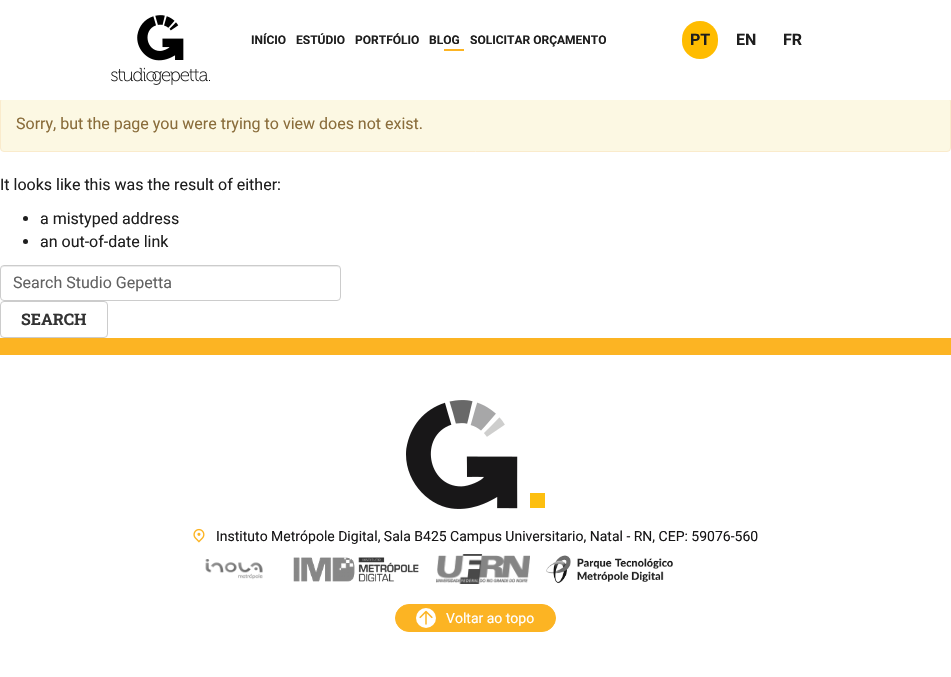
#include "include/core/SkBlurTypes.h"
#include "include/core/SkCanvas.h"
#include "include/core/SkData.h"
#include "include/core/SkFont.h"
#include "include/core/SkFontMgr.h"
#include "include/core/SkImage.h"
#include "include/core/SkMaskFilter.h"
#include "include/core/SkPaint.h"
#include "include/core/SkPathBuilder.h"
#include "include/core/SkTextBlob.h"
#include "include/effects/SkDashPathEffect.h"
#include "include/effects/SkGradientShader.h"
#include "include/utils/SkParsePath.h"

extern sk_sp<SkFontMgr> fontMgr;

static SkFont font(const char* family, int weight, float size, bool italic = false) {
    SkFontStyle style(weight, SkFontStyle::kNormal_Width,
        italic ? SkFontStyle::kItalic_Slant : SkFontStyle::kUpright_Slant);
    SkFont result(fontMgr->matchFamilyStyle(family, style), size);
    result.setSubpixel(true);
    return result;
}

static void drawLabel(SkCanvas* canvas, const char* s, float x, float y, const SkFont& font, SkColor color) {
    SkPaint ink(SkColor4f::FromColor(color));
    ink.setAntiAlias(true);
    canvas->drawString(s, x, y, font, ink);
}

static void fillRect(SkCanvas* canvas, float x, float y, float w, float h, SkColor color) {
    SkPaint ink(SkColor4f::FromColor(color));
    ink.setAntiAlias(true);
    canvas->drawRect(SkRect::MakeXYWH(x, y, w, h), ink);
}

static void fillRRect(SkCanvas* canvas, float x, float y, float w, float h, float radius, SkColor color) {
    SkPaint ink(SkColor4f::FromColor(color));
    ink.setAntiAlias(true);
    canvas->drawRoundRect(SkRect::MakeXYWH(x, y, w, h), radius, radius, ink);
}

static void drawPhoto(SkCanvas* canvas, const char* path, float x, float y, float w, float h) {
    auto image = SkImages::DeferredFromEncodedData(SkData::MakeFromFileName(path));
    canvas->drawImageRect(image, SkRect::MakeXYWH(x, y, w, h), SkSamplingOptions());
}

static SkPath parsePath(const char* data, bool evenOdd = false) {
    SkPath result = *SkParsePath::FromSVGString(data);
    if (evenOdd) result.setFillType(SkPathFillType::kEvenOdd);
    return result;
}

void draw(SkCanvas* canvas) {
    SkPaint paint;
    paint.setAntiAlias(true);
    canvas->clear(0xFFFFFFFF);
    paint.setColor(0xFFFCF8E3);
    canvas->drawRoundRect(SkRect::MakeXYWH(0.5f, 97.5f, 950, 54), 3.5f, 3.5f, paint);
    paint.setStroke(true);
    paint.setStrokeWidth(1);
    paint.setColor(0xFFFAEBCC);
    canvas->drawRoundRect(SkRect::MakeXYWH(0.5f, 97.5f, 950, 54), 3.5f, 3.5f, paint);
    fillRect(canvas, 0, 97, 951, 3, 0xFFFFFFFF);
    drawPhoto(canvas, "assets/img1.png", 111, 15, 99, 70);
    SkFont font1 = font("Roboto", 700, 12);
    drawLabel(canvas, "INÍCIO", 251, 44, font1, 0xFF1E1E1E);
    drawLabel(canvas, "ESTÚDIO", 296, 44, font1, 0xFF1E1E1E);
    drawLabel(canvas, "PORTFÓLIO", 355, 44, font1, 0xFF1E1E1E);
    drawLabel(canvas, "BLOG", 429, 44, font1, 0xFF1E1E1E);
    fillRect(canvas, 444, 49, 20, 2, 0xFFFCB423);
    drawLabel(canvas, "SOLICITAR ORÇAMENTO", 470, 44, font1, 0xFF1E1E1E);
    fillRRect(canvas, 682, 21, 36, 38, 18, 0xFFFFBC00);
    SkFont font2 = font("Roboto", 700, 16);
    drawLabel(canvas, "PT", 690, 45, font2, 0xFF1E1E1E);
    drawLabel(canvas, "EN", 736, 45, font2, 0xFF1E1E1E);
    drawLabel(canvas, "FR", 783, 45, font2, 0xFF1E1E1E);
    SkFont font3 = font("Roboto", 400, 16);
    drawLabel(canvas, "Sorry, but the page you were trying to view does not exist.", 16, 129, font3, 0xFF8A6D3B);
    drawLabel(canvas, "It looks like this was the result of either:", 0, 190, font3, 0xFF1E1E1E);
    paint.setStroke(false);
    paint.setColor(0xFF1E1E1E);
    canvas->drawCircle(25.5f, 218.5f, 2.5f, paint);
    drawLabel(canvas, "a mistyped address", 40, 224, font3, 0xFF1E1E1E);
    canvas->drawCircle(25.5f, 241.5f, 2.5f, paint);
    drawLabel(canvas, "an out-of-date link", 40, 247, font3, 0xFF1E1E1E);
    paint.setColor(0xFFECECEC);
    canvas->drawPath(parsePath("M4 267H337C339 267 340 268 340 270C340 268 339 266 337 266H4C2 266 1 268 1 270C1 268 2 267 4 267Z"), paint);
    paint.setStroke(true);
    paint.setColor(0xFFCCCCCC);
    canvas->drawRoundRect(SkRect::MakeXYWH(0.5f, 265.5f, 340, 35), 3.5f, 3.5f, paint);
    drawLabel(canvas, "Search Studio Gepetta", 13, 288, font3, 0xFF626262);
    canvas->drawRoundRect(SkRect::MakeXYWH(0.5f, 301.5f, 107, 36), 3.5f, 3.5f, paint);
    SkFont font4 = font("Roboto Slab", 700, 16);
    drawLabel(canvas, "SEARCH", 21, 325, font4, 0xFF333333);
    fillRect(canvas, 0, 338, 951, 17, 0xFFFCB423);
    drawPhoto(canvas, "assets/img2.png", 406, 400, 139, 109);
    drawPhoto(canvas, "assets/img3.png", 193, 528, 12, 15);
    SkFont font5 = font("Roboto", 400, 14);
    drawLabel(canvas, "Instituto Metrópole Digital, Sala B425 Campus Universitario, Natal - RN, CEP: 59076-560", 216, 541, font5, 0xFF171617);
    drawPhoto(canvas, "assets/img4.png", 205, 559, 58, 21);
    drawPhoto(canvas, "assets/img5.png", 293, 557, 126, 25);
    drawPhoto(canvas, "assets/img6.png", 436, 554, 94, 30);
    drawPhoto(canvas, "assets/img7.png", 546, 555, 127, 29);
    paint.setStroke(false);
    paint.setColor(0xFFFCB423);
    canvas->drawRoundRect(SkRect::MakeXYWH(395.5f, 604.5f, 160, 27), 13.5f, 13.5f, paint);
    paint.setStroke(true);
    canvas->drawRoundRect(SkRect::MakeXYWH(395.5f, 604.5f, 160, 27), 13.5f, 13.5f, paint);
    paint.setStroke(false);
    paint.setColor(0xFFFFFFFF);
    canvas->drawCircle(426, 618, 10, paint);
    drawPhoto(canvas, "assets/img8.png", 419, 610, 14, 15);
    drawLabel(canvas, "Voltar ao topo", 446, 623, font5, 0xFFFFFFFF);
}
